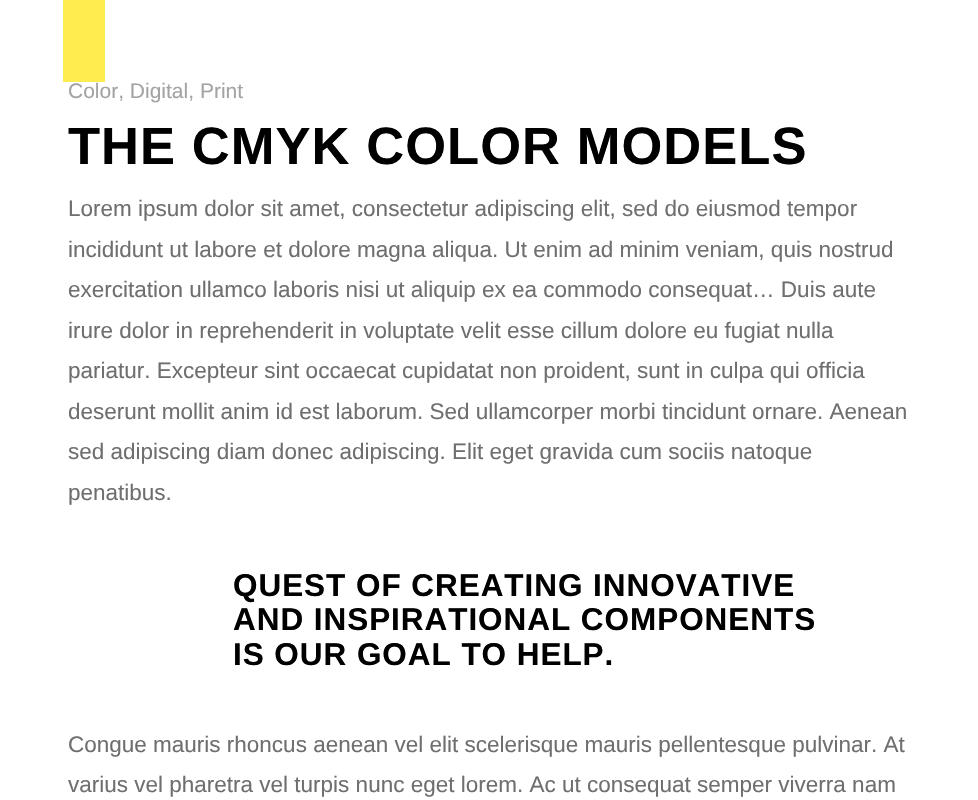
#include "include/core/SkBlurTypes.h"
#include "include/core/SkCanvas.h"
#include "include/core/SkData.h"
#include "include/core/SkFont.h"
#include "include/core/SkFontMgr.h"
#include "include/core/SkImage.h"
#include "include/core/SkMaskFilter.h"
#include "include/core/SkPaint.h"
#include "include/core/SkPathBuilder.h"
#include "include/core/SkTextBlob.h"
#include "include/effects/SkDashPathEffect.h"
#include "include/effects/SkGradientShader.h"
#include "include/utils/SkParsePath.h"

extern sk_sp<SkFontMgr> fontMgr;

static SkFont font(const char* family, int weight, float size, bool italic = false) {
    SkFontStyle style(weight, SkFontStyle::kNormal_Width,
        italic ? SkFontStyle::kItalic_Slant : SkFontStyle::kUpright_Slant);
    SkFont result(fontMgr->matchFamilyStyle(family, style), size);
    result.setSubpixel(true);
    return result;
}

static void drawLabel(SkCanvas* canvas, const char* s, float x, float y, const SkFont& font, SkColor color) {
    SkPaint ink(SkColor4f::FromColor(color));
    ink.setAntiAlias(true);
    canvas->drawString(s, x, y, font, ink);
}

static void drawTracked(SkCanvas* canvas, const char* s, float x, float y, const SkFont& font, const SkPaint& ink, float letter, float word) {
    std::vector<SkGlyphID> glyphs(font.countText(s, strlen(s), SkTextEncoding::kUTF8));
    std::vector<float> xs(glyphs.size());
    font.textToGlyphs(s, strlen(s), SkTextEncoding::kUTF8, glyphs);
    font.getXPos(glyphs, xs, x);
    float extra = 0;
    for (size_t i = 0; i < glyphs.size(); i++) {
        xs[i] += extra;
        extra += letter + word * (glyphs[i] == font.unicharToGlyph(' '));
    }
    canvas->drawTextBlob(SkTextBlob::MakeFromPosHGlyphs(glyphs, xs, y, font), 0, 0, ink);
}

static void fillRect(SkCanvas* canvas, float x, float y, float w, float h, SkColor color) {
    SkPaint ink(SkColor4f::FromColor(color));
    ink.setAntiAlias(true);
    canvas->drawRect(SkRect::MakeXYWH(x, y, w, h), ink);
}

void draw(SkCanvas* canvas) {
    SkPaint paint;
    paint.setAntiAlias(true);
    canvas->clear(0xFFFFFFFF);
    fillRect(canvas, 63, 0, 42, 82, 0xFFFFEC4F);
    SkFont font1 = font("Arimo", 400, 21);
    drawLabel(canvas, "Color, Digital, Print", 68, 98, font1, 0xFFA3A3A3);
    SkFont font2 = font("Arimo", 700, 52.5f);
    paint.setColor(0xFF000000);
    drawTracked(canvas, "THE CMYK COLOR MODELS", 68, 164, font2, paint, 1.05f, 0);
    SkFont font3 = font("Arimo", 400, 22.5f);
    drawLabel(canvas, "Lorem ipsum dolor sit amet, consectetur adipiscing elit, sed do eiusmod tempor", 68, 216, font3, 0xFF6F6F6F);
    drawLabel(canvas, "incididunt ut labore et dolore magna aliqua. Ut enim ad minim veniam, quis nostrud", 68, 257, font3, 0xFF6F6F6F);
    drawLabel(canvas, "exercitation ullamco laboris nisi ut aliquip ex ea commodo consequat… Duis aute", 68, 297, font3, 0xFF6F6F6F);
    drawLabel(canvas, "irure dolor in reprehenderit in voluptate velit esse cillum dolore eu fugiat nulla", 68, 338, font3, 0xFF6F6F6F);
    drawLabel(canvas, "pariatur. Excepteur sint occaecat cupidatat non proident, sunt in culpa qui officia", 68, 378, font3, 0xFF6F6F6F);
    drawLabel(canvas, "deserunt mollit anim id est laborum. Sed ullamcorper morbi tincidunt ornare. Aenean", 68, 419, font3, 0xFF6F6F6F);
    drawLabel(canvas, "sed adipiscing diam donec adipiscing. Elit eget gravida cum sociis natoque", 68, 459, font3, 0xFF6F6F6F);
    drawLabel(canvas, "penatibus.", 68, 500, font3, 0xFF6F6F6F);
    SkFont font4 = font("Arimo", 700, 31.5f);
    drawTracked(canvas, "QUEST OF CREATING INNOVATIVE", 233, 596, font4, paint, 0.95f, 0);
    drawTracked(canvas, "AND INSPIRATIONAL COMPONENTS", 233, 630, font4, paint, 0.95f, 0);
    drawTracked(canvas, "IS OUR GOAL TO HELP.", 233, 665, font4, paint, 0.95f, 0);
    drawLabel(canvas, "Congue mauris rhoncus aenean vel elit scelerisque mauris pellentesque pulvinar. At", 68, 752, font3, 0xFF6F6F6F);
    drawLabel(canvas, "varius vel pharetra vel turpis nunc eget lorem. Ac ut consequat semper viverra nam", 68, 792, font3, 0xFF6F6F6F);
}
